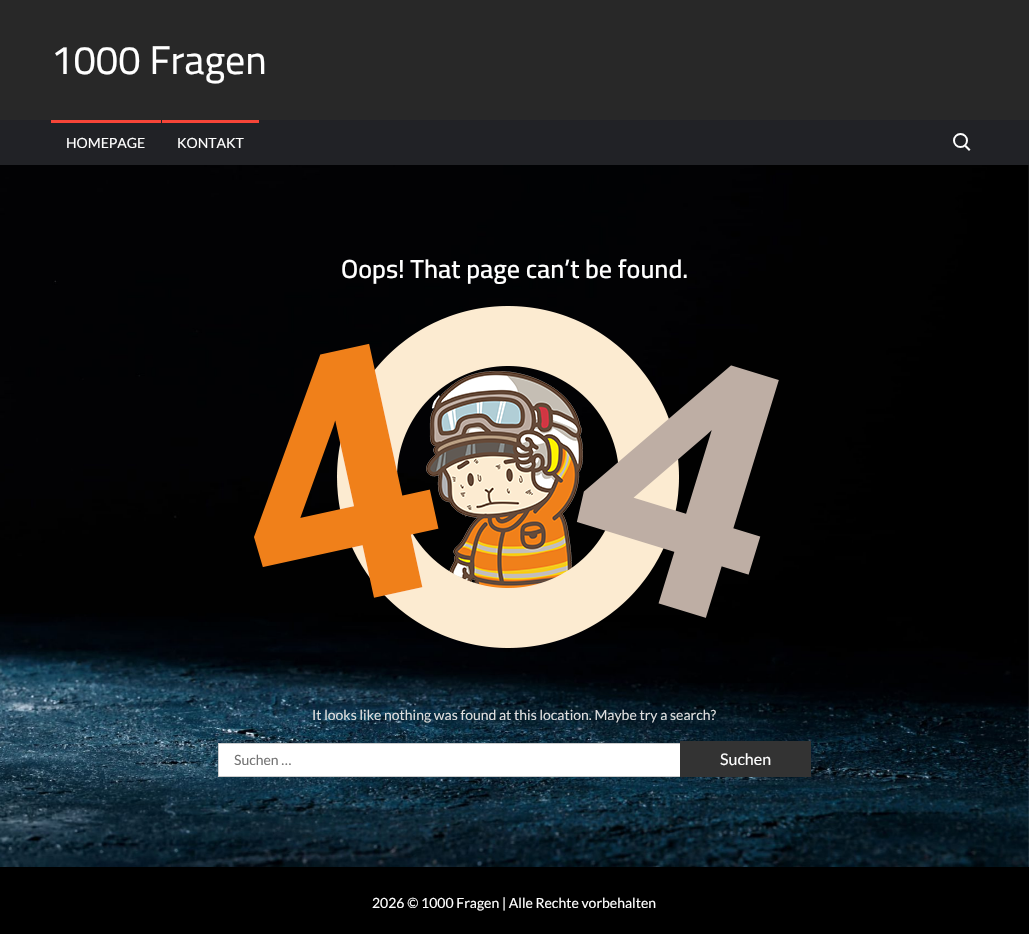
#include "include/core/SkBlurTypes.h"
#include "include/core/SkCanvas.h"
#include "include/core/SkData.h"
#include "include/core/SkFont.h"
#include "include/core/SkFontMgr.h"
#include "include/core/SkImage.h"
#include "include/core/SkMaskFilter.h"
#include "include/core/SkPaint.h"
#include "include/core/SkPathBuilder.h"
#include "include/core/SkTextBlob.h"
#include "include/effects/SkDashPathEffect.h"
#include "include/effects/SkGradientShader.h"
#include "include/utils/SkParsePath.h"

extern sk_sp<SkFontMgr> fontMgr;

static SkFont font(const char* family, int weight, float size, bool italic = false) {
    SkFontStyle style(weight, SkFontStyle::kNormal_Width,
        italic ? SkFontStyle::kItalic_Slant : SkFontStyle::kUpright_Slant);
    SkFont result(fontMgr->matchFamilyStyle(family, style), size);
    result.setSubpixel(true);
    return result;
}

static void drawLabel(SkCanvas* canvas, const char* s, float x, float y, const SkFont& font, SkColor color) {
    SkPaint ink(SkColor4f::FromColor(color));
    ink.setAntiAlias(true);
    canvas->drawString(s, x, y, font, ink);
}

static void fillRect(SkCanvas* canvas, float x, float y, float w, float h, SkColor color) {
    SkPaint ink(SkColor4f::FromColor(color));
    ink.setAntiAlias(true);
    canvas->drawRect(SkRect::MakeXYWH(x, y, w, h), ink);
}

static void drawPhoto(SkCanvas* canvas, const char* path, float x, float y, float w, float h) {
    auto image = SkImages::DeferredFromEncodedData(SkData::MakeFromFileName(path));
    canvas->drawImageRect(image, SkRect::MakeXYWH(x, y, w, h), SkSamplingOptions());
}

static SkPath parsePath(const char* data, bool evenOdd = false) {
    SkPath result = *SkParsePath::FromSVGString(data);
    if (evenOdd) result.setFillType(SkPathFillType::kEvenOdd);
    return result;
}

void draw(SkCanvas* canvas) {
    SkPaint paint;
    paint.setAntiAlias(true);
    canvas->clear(0xFFFFFFFF);
    drawPhoto(canvas, "assets/img1.png", 0, 165, 1029, 702);
    fillRect(canvas, 0, 0, 1029, 120, 0xFF282828);
    SkFont font1 = font("Cairo", 400, 40);
    drawLabel(canvas, "1000 Fragen", 51, 74, font1, 0xFFFFFFFF);
    fillRect(canvas, 0, 120, 1029, 45, 0xFF212226);
    fillRect(canvas, 51, 120, 110, 3, 0xFFF64538);
    SkFont font2 = font("Lato", 400, 14);
    drawLabel(canvas, "HOMEPAGE", 66, 148, font2, 0xFFFFFFFF);
    fillRect(canvas, 162, 120, 97, 3, 0xFFF64538);
    drawLabel(canvas, "KONTAKT", 177, 148, font2, 0xFFFFFFFF);
    paint.setStroke(true);
    paint.setStrokeWidth(2);
    paint.setColor(0xFFFFFFFF);
    canvas->drawCircle(960.5f, 140.5f, 6.5f, paint);
    paint.setStroke(false);
    canvas->drawPath(parsePath("M966 145L970.5 149.5L969 151L964.5 146.5Z"), paint);
    SkFont font3 = font("Cairo", 600, 26);
    drawLabel(canvas, "Oops! That page can’t be found.", 341, 278, font3, 0xFFFFFFFF);
    drawPhoto(canvas, "assets/img2.png", 254, 306, 525, 342);
    drawLabel(canvas, "It looks like nothing was found at this location. Maybe try a search?", 312, 720, font2, 0xFFDFDFDF);
    canvas->drawRect(SkRect::MakeXYWH(218.5f, 743.5f, 462, 33), paint);
    paint.setStroke(true);
    paint.setStrokeWidth(1);
    paint.setColor(0xFFCCCCCC);
    canvas->drawRect(SkRect::MakeXYWH(218.5f, 743.5f, 462, 33), paint);
    drawLabel(canvas, "Suchen …", 234, 765, font2, 0xFF757575);
    fillRect(canvas, 680, 741, 131, 36, 0xFF333333);
    SkFont font4 = font("Lato", 400, 16);
    drawLabel(canvas, "Suchen", 720, 765, font4, 0xFFFFFFFF);
    fillRect(canvas, 0, 867, 1029, 67, 0xFF000000);
    drawLabel(canvas, "2026 © 1000 Fragen | Alle Rechte vorbehalten", 372, 908, font2, 0xFFFFFFFF);
}
